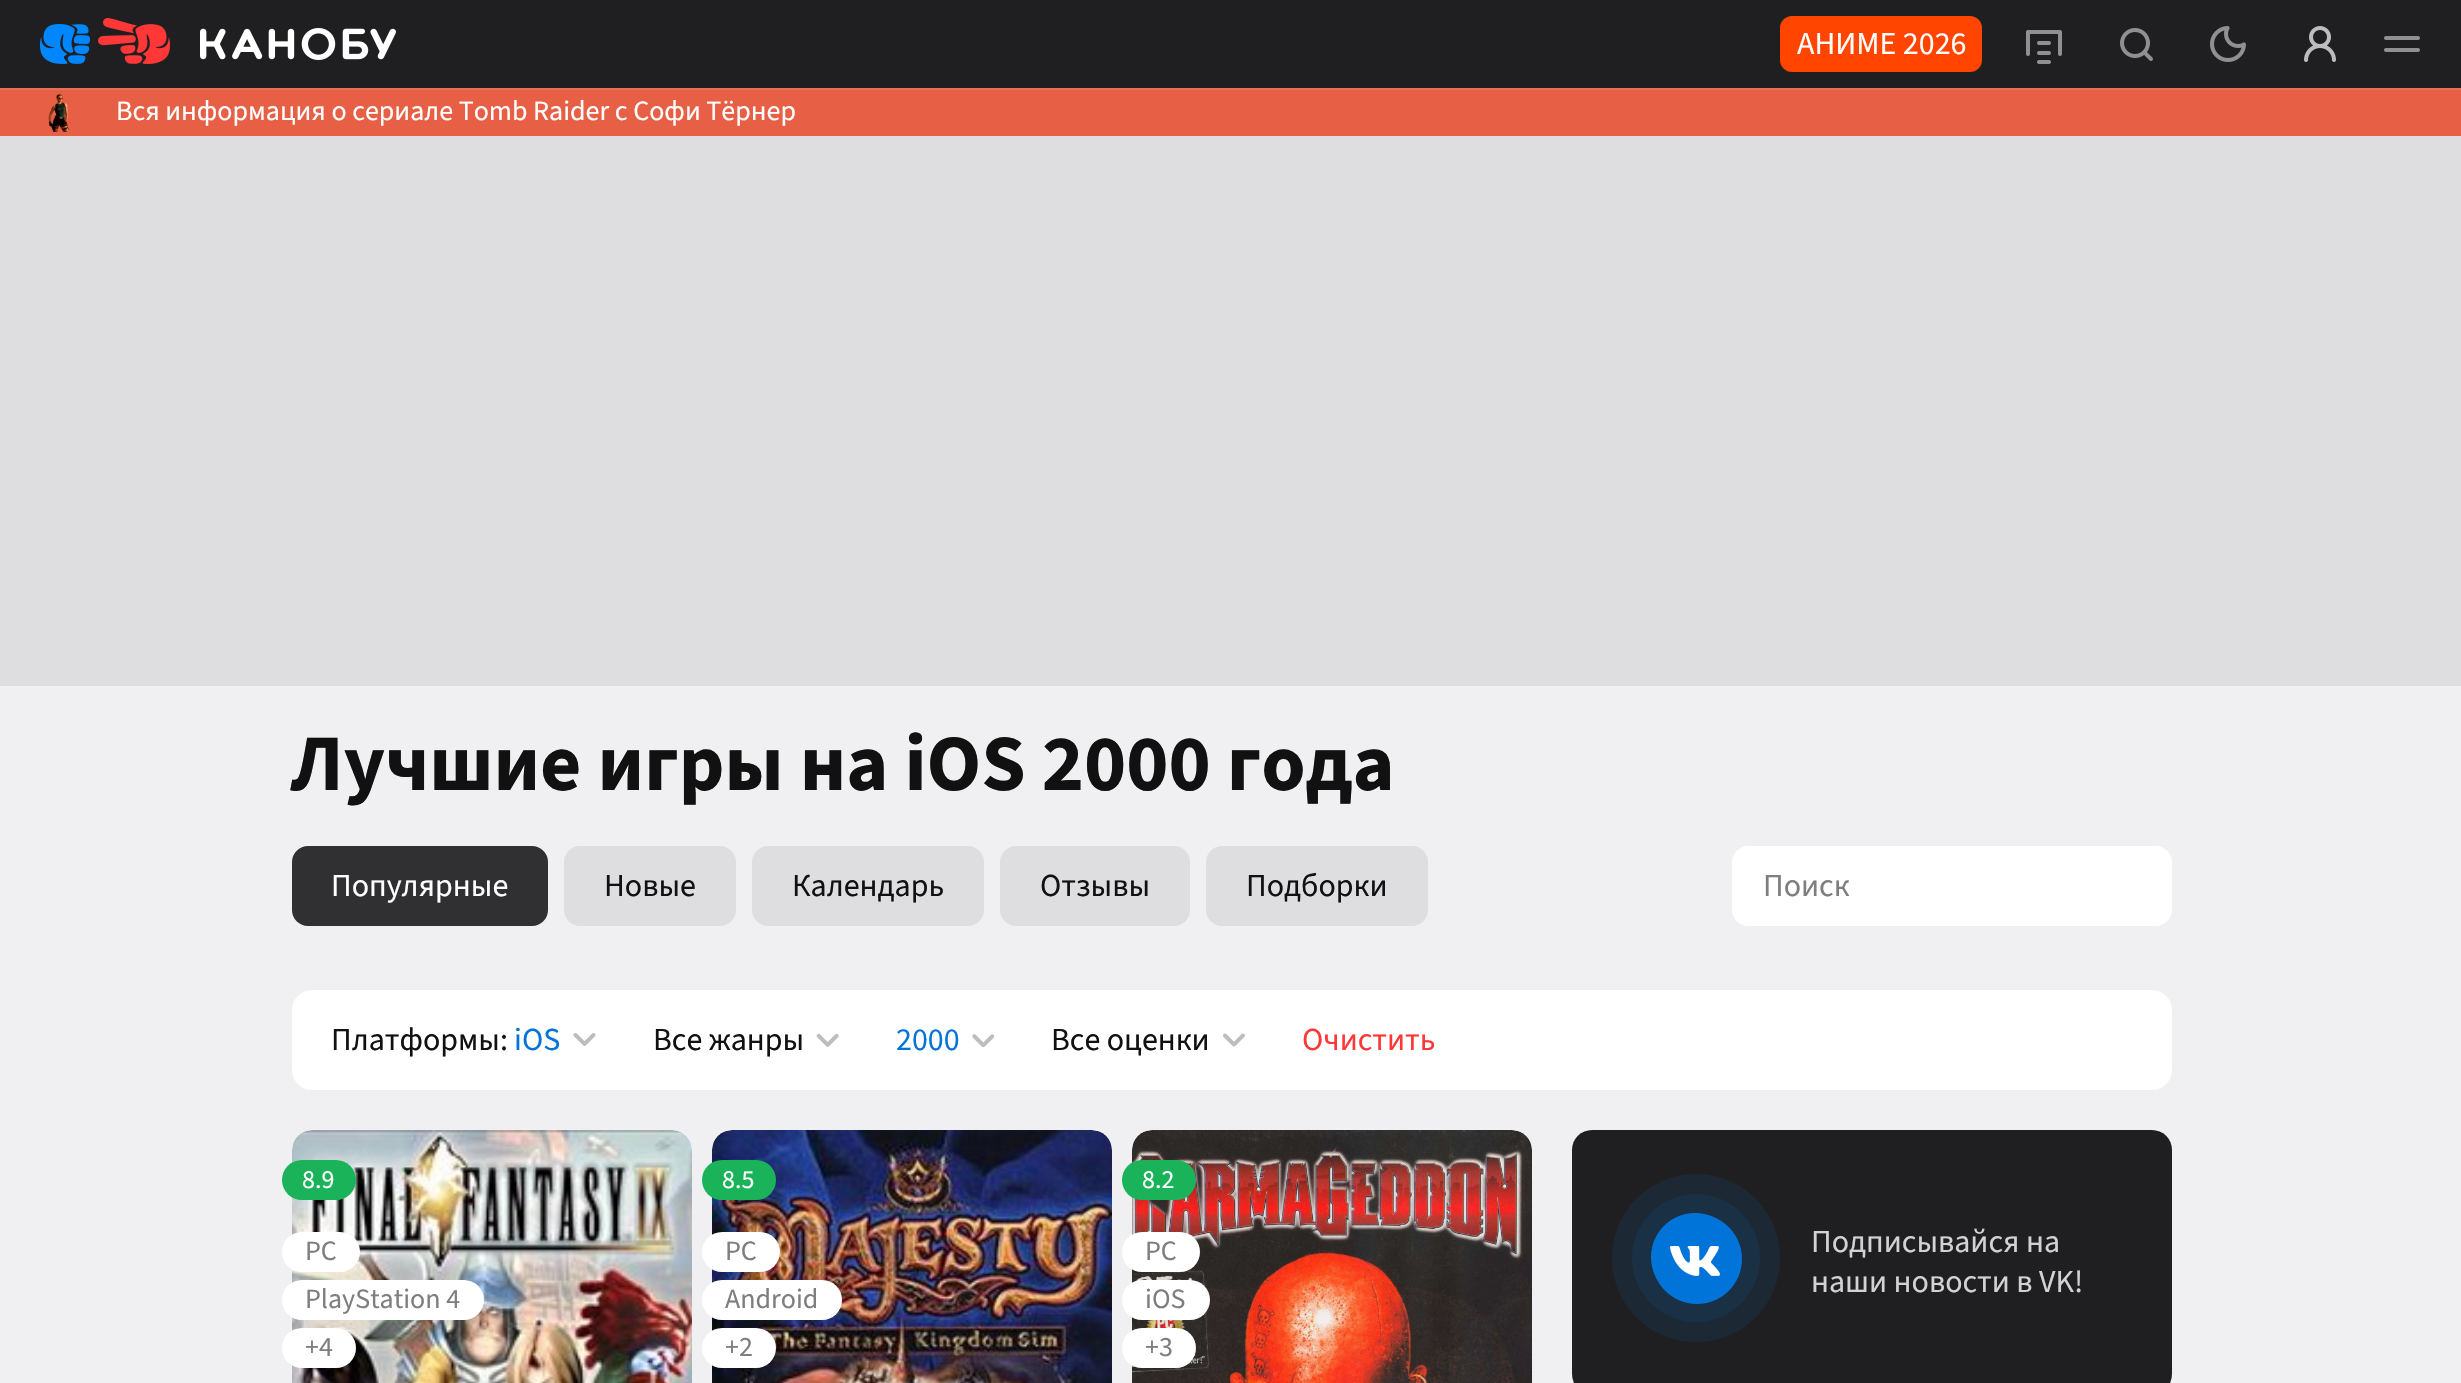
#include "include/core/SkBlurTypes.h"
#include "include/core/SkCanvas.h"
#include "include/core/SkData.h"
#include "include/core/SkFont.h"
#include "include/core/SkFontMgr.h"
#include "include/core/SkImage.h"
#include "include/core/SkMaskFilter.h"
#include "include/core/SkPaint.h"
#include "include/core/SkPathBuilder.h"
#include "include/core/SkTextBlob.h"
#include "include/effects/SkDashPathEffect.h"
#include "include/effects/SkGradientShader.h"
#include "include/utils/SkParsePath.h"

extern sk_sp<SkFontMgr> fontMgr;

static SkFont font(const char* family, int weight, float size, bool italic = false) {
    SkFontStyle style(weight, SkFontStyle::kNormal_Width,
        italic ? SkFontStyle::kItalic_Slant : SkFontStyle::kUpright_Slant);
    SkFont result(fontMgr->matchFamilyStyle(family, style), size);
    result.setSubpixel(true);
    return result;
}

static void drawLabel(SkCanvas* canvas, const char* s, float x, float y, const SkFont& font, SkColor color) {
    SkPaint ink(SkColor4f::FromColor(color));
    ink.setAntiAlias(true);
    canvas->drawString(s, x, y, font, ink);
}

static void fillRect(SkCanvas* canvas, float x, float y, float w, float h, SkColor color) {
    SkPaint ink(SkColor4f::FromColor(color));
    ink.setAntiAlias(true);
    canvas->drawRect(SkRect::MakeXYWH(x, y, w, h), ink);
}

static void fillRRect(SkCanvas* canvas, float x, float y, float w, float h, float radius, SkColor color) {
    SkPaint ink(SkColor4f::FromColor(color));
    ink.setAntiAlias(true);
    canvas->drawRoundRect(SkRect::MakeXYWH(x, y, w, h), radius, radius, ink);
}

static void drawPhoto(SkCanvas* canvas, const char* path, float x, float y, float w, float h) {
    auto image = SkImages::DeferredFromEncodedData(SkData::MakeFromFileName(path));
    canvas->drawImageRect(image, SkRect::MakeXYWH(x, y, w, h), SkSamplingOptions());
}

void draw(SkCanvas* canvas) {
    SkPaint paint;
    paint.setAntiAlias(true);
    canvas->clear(0xFFF0F0F2);
    fillRect(canvas, 0, 88, 2461, 2, 0xFFE97058);
    fillRect(canvas, 0, 0, 2461, 88, 0xFF1F1F21);
    drawPhoto(canvas, "assets/img1.png", 40, 18, 356, 46);
    fillRRect(canvas, 1780, 16, 202, 56, 12, 0xFFFF4500);
    SkFont font1 = font("Source Sans 3", 400, 32);
    drawLabel(canvas, "АНИМЕ 2026", 1797, 54, font1, 0xFFFFFFFF);
    drawPhoto(canvas, "assets/img2.png", 2026, 30, 36, 34);
    drawPhoto(canvas, "assets/img3.png", 2120, 28, 33, 33);
    drawPhoto(canvas, "assets/img4.png", 2210, 26, 36, 36);
    drawPhoto(canvas, "assets/img5.png", 2304, 26, 32, 36);
    drawPhoto(canvas, "assets/img6.png", 2384, 36, 36, 16);
    fillRect(canvas, 0, 90, 2461, 46, 0xFFE76045);
    drawPhoto(canvas, "assets/img7.png", 48, 94, 22, 38);
    SkFont font2 = font("Source Sans 3", 400, 28);
    drawLabel(canvas, "Вся информация о сериале Tomb Raider с Софи Тёрнер", 116, 120, font2, 0xFFFFFFFF);
    fillRect(canvas, 0, 136, 2461, 550, 0xFFDEDEE0);
    SkFont font3 = font("Source Sans 3", 700, 80);
    drawLabel(canvas, "Лучшие игры на iOS 2000 года", 291, 790, font3, 0xFF111112);
    fillRRect(canvas, 292, 846, 256, 80, 16, 0xFF303033);
    drawLabel(canvas, "Популярные", 331, 896, font1, 0xFFFFFFFF);
    fillRRect(canvas, 564, 846, 172, 80, 16, 0xFFDEDEE0);
    drawLabel(canvas, "Новые", 604, 896, font1, 0xFF111112);
    fillRRect(canvas, 752, 846, 232, 80, 16, 0xFFDEDEE0);
    drawLabel(canvas, "Календарь", 792, 896, font1, 0xFF111112);
    fillRRect(canvas, 1000, 846, 190, 80, 16, 0xFFDEDEE0);
    drawLabel(canvas, "Отзывы", 1040, 896, font1, 0xFF111112);
    fillRRect(canvas, 1206, 846, 222, 80, 16, 0xFFDEDEE0);
    drawLabel(canvas, "Подборки", 1246, 896, font1, 0xFF111112);
    fillRRect(canvas, 1732, 846, 440, 80, 16, 0xFFFFFFFF);
    drawLabel(canvas, "Поиск", 1763, 896, font1, 0xFF7E7E80);
    fillRRect(canvas, 292, 990, 1880, 100, 20, 0xFFFFFFFF);
    drawLabel(canvas, "Платформы:", 331, 1050, font1, 0xFF111112);
    drawLabel(canvas, "iOS", 514, 1050, font1, 0xFF0074D9);
    drawPhoto(canvas, "assets/img8.png", 573, 1033, 23, 13);
    drawLabel(canvas, "Все жанры", 653, 1050, font1, 0xFF111112);
    drawPhoto(canvas, "assets/img9.png", 816, 1033, 23, 14);
    drawLabel(canvas, "2000", 896, 1050, font1, 0xFF0074D9);
    drawPhoto(canvas, "assets/img10.png", 972, 1034, 23, 14);
    drawLabel(canvas, "Все оценки", 1051, 1050, font1, 0xFF111112);
    drawPhoto(canvas, "assets/img11.png", 1223, 1033, 22, 14);
    drawLabel(canvas, "Очистить", 1302, 1050, font1, 0xFFFF3737);
    fillRRect(canvas, 292, 1130, 400, 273, 20, 0xFFFFFFFF);
    drawPhoto(canvas, "assets/img12.png", 292, 1130, 400, 253);
    fillRRect(canvas, 282, 1160, 74, 40, 20, 0xFF1BB35A);
    SkFont font4 = font("Source Sans 3", 400, 26);
    drawLabel(canvas, "8.9", 302, 1188, font4, 0xFFFFFFFF);
    fillRRect(canvas, 282, 1232, 78, 40, 20, 0xFFFFFFFF);
    drawLabel(canvas, "PC", 305, 1260, font2, 0xFF7E7E80);
    fillRRect(canvas, 282, 1280, 202, 40, 20, 0xFFFFFFFF);
    drawLabel(canvas, "PlayStation 4", 305, 1308, font2, 0xFF7E7E80);
    fillRRect(canvas, 282, 1328, 74, 40, 20, 0xFFFFFFFF);
    drawLabel(canvas, "+4", 305, 1356, font2, 0xFF7E7E80);
    fillRRect(canvas, 712, 1130, 400, 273, 20, 0xFFFFFFFF);
    drawPhoto(canvas, "assets/img13.png", 712, 1130, 400, 253);
    fillRRect(canvas, 702, 1160, 74, 40, 20, 0xFF1BB35A);
    drawLabel(canvas, "8.5", 722, 1188, font4, 0xFFFFFFFF);
    fillRRect(canvas, 702, 1232, 78, 40, 20, 0xFFFFFFFF);
    drawLabel(canvas, "PC", 725, 1260, font2, 0xFF7E7E80);
    fillRRect(canvas, 702, 1280, 140, 40, 20, 0xFFFFFFFF);
    drawLabel(canvas, "Android", 725, 1308, font2, 0xFF7E7E80);
    fillRRect(canvas, 702, 1328, 74, 40, 20, 0xFFFFFFFF);
    drawLabel(canvas, "+2", 725, 1356, font2, 0xFF7E7E80);
    fillRRect(canvas, 1132, 1130, 400, 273, 20, 0xFFFFFFFF);
    drawPhoto(canvas, "assets/img14.png", 1132, 1130, 400, 253);
    fillRRect(canvas, 1122, 1160, 74, 40, 20, 0xFF1BB35A);
    drawLabel(canvas, "8.2", 1142, 1188, font4, 0xFFFFFFFF);
    fillRRect(canvas, 1122, 1232, 78, 40, 20, 0xFFFFFFFF);
    drawLabel(canvas, "PC", 1145, 1260, font2, 0xFF7E7E80);
    fillRRect(canvas, 1122, 1280, 88, 40, 20, 0xFFFFFFFF);
    drawLabel(canvas, "iOS", 1145, 1308, font2, 0xFF7E7E80);
    fillRRect(canvas, 1122, 1328, 74, 40, 20, 0xFFFFFFFF);
    drawLabel(canvas, "+3", 1145, 1356, font2, 0xFF7E7E80);
    fillRRect(canvas, 1572, 1130, 600, 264, 20, 0xFF1F1F21);
    drawPhoto(canvas, "assets/img15.png", 1612, 1174, 168, 168);
    drawLabel(canvas, "Подписывайся на", 1811, 1252, font1, 0xFFD2D2D3);
    drawLabel(canvas, "наши новости в VK!", 1811, 1292, font1, 0xFFD2D2D3);
}
